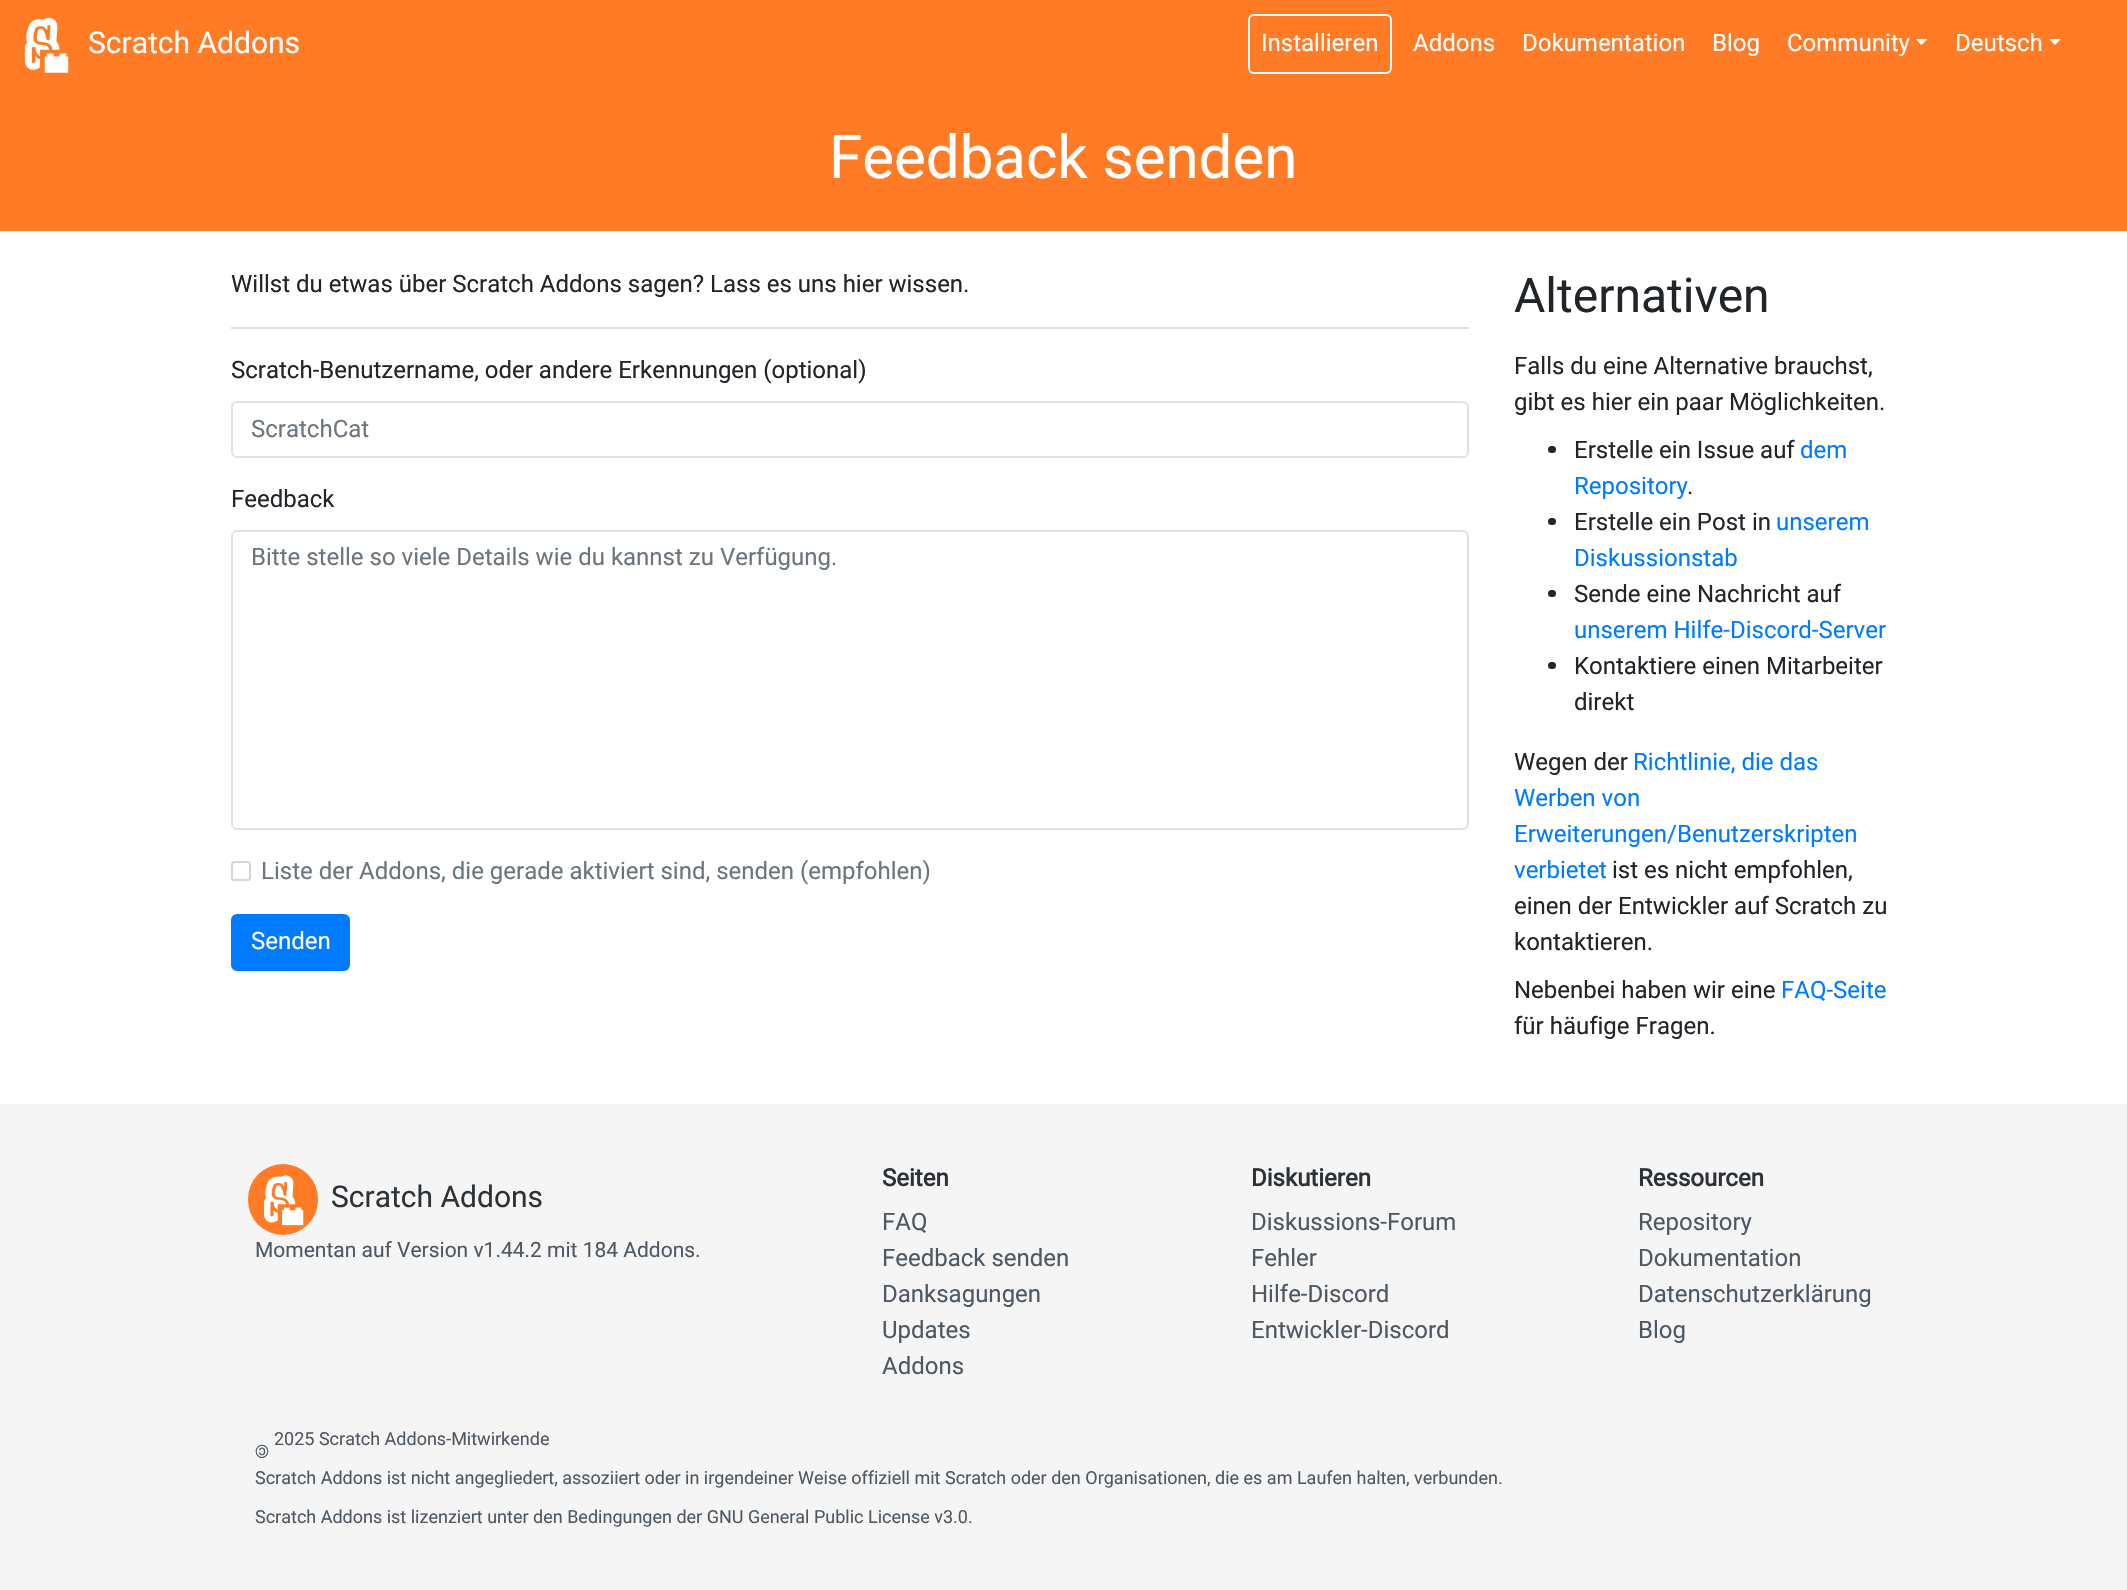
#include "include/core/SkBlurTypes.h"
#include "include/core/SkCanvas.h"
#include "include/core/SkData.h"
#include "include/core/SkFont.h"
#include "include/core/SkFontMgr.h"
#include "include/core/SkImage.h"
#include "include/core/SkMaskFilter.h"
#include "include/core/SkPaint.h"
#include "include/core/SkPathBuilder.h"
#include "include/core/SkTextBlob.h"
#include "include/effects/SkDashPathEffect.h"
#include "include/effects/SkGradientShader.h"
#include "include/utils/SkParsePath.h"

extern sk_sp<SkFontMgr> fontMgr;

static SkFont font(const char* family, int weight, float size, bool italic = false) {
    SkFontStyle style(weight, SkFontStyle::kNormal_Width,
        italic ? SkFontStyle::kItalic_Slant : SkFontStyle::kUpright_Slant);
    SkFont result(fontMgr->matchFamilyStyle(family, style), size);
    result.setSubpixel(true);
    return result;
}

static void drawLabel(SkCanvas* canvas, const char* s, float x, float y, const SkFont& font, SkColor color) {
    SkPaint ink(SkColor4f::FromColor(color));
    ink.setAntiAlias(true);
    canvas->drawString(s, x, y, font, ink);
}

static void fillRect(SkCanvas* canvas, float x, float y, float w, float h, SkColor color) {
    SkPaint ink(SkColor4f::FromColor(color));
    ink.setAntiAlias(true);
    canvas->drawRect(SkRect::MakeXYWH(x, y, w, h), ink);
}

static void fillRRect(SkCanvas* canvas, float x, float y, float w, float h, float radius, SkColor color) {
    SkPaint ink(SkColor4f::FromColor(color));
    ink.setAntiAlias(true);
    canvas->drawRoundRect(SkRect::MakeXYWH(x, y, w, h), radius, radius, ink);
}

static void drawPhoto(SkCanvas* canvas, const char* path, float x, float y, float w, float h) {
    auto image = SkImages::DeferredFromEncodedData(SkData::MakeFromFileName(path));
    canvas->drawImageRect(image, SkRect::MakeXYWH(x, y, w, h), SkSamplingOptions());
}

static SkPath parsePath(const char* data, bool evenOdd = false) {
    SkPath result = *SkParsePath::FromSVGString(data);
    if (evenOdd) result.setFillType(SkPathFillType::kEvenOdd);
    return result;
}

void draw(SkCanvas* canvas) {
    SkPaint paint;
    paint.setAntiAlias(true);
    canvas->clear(0xFFFFFFFF);
    fillRect(canvas, 0, 0, 2127, 231, 0xFFFF7B26);
    drawPhoto(canvas, "assets/img1.png", 24, 17, 45, 56);
    SkFont font1 = font("Roboto", 400, 30);
    drawLabel(canvas, "Scratch Addons", 88, 53, font1, 0xFFFFFFFF);
    paint.setStroke(true);
    paint.setStrokeWidth(2);
    paint.setColor(0xFFFFFFFF);
    canvas->drawRoundRect(SkRect::MakeXYWH(1249, 15, 142, 58), 5, 5, paint);
    SkFont font2 = font("Roboto", 400, 24);
    drawLabel(canvas, "Installieren", 1261, 51, font2, 0xFFFFFFFF);
    drawLabel(canvas, "Addons", 1413, 51, font2, 0xFFFFFFFF);
    drawLabel(canvas, "Dokumentation", 1522, 51, font2, 0xFFFFFFFF);
    drawLabel(canvas, "Blog", 1712, 51, font2, 0xFFFFFFFF);
    drawLabel(canvas, "Community", 1787, 51, font2, 0xFFFFFFFF);
    paint.setStroke(false);
    canvas->drawPath(parsePath("M1915.5 39H1927.5L1921.5 45Z"), paint);
    drawLabel(canvas, "Deutsch", 1955, 51, font2, 0xFFFFFFFF);
    canvas->drawPath(parsePath("M2049 39H2061L2055 45Z"), paint);
    SkFont font3 = font("Roboto", 400, 60);
    drawLabel(canvas, "Feedback senden", 829, 178, font3, 0xFFFFFFFF);
    drawLabel(canvas, "Willst du etwas über Scratch Addons sagen? Lass es uns hier wissen.", 231, 292, font2, 0xFF212529);
    fillRect(canvas, 231, 327, 1238, 2, 0xFFDEE2E6);
    drawLabel(canvas, "Scratch-Benutzername, oder andere Erkennungen (optional)", 231, 378, font2, 0xFF212529);
    paint.setStroke(true);
    paint.setColor(0xFFDEE2E6);
    canvas->drawRoundRect(SkRect::MakeXYWH(232, 402, 1236, 55), 5, 5, paint);
    drawLabel(canvas, "ScratchCat", 251, 437, font2, 0xFF6C757D);
    drawLabel(canvas, "Feedback", 231, 507, font2, 0xFF212529);
    canvas->drawRoundRect(SkRect::MakeXYWH(232, 531, 1236, 298), 5, 5, paint);
    drawLabel(canvas, "Bitte stelle so viele Details wie du kannst zu Verfügung.", 251, 565, font2, 0xFF6C757D);
    paint.setColor(0xFFD6D6D6);
    canvas->drawRoundRect(SkRect::MakeXYWH(232, 862, 18, 18), 2, 2, paint);
    drawLabel(canvas, "Liste der Addons, die gerade aktiviert sind, senden (empfohlen)", 261, 879, font2, 0xFF6C757D);
    paint.setStroke(false);
    paint.setColor(0xFF007BFF);
    canvas->drawRoundRect(SkRect::MakeXYWH(232, 915, 117, 55), 5, 5, paint);
    paint.setStroke(true);
    canvas->drawRoundRect(SkRect::MakeXYWH(232, 915, 117, 55), 5, 5, paint);
    drawLabel(canvas, "Senden", 251, 949, font2, 0xFFFFFFFF);
    SkFont font4 = font("Roboto", 400, 48);
    drawLabel(canvas, "Alternativen", 1514, 312, font4, 0xFF212529);
    drawLabel(canvas, "Falls du eine Alternative brauchst,", 1514, 374, font2, 0xFF212529);
    drawLabel(canvas, "gibt es hier ein paar Möglichkeiten.", 1514, 410, font2, 0xFF212529);
    fillRRect(canvas, 1548, 446, 8, 7, 3.5f, 0xFF212529);
    drawLabel(canvas, "Erstelle ein Issue auf", 1574, 458, font2, 0xFF212529);
    drawLabel(canvas, "dem", 1800, 458, font2, 0xFF007BFF);
    drawLabel(canvas, "Repository", 1574, 494, font2, 0xFF007BFF);
    drawLabel(canvas, ".", 1687, 494, font2, 0xFF212529);
    fillRRect(canvas, 1548, 518, 8, 7, 3.5f, 0xFF212529);
    drawLabel(canvas, "Erstelle ein Post in", 1574, 530, font2, 0xFF212529);
    drawLabel(canvas, "unserem", 1776, 530, font2, 0xFF007BFF);
    drawLabel(canvas, "Diskussionstab", 1574, 566, font2, 0xFF007BFF);
    fillRRect(canvas, 1548, 590, 8, 7, 3.5f, 0xFF212529);
    drawLabel(canvas, "Sende eine Nachricht auf", 1574, 602, font2, 0xFF212529);
    drawLabel(canvas, "unserem Hilfe-Discord-Server", 1574, 638, font2, 0xFF007BFF);
    fillRRect(canvas, 1548, 662, 8, 7, 3.5f, 0xFF212529);
    drawLabel(canvas, "Kontaktiere einen Mitarbeiter", 1574, 674, font2, 0xFF212529);
    drawLabel(canvas, "direkt", 1574, 710, font2, 0xFF212529);
    drawLabel(canvas, "Wegen der", 1514, 770, font2, 0xFF212529);
    drawLabel(canvas, "Richtlinie, die das", 1633, 770, font2, 0xFF007BFF);
    drawLabel(canvas, "Werben von", 1514, 806, font2, 0xFF007BFF);
    drawLabel(canvas, "Erweiterungen/Benutzerskripten", 1514, 842, font2, 0xFF007BFF);
    drawLabel(canvas, "verbietet", 1514, 878, font2, 0xFF007BFF);
    drawLabel(canvas, "ist es nicht empfohlen,", 1612, 878, font2, 0xFF212529);
    drawLabel(canvas, "einen der Entwickler auf Scratch zu", 1514, 914, font2, 0xFF212529);
    drawLabel(canvas, "kontaktieren.", 1514, 950, font2, 0xFF212529);
    drawLabel(canvas, "Nebenbei haben wir eine", 1514, 998, font2, 0xFF212529);
    drawLabel(canvas, "FAQ-Seite", 1781, 998, font2, 0xFF007BFF);
    drawLabel(canvas, "für häufige Fragen.", 1514, 1034, font2, 0xFF212529);
    fillRect(canvas, 0, 1104, 2127, 486, 0xFFF5F5F5);
    fillRRect(canvas, 248, 1164, 70, 71, 35, 0xFFFF7B26);
    drawPhoto(canvas, "assets/img2.png", 263, 1175, 41, 51);
    drawLabel(canvas, "Scratch Addons", 331, 1207, font1, 0xFF2C3237);
    SkFont font5 = font("Roboto", 400, 21);
    drawLabel(canvas, "Momentan auf Version v1.44.2 mit 184 Addons.", 255, 1257, font5, 0xFF4E5862);
    SkFont font6 = font("Roboto", 700, 24);
    drawLabel(canvas, "Seiten", 882, 1186, font6, 0xFF2C3237);
    drawLabel(canvas, "FAQ", 882, 1230, font2, 0xFF4E5862);
    drawLabel(canvas, "Feedback senden", 882, 1266, font2, 0xFF4E5862);
    drawLabel(canvas, "Danksagungen", 882, 1302, font2, 0xFF4E5862);
    drawLabel(canvas, "Updates", 882, 1338, font2, 0xFF4E5862);
    drawLabel(canvas, "Addons", 882, 1374, font2, 0xFF4E5862);
    drawLabel(canvas, "Diskutieren", 1251, 1186, font6, 0xFF2C3237);
    drawLabel(canvas, "Diskussions-Forum", 1251, 1230, font2, 0xFF4E5862);
    drawLabel(canvas, "Fehler", 1251, 1266, font2, 0xFF4E5862);
    drawLabel(canvas, "Hilfe-Discord", 1251, 1302, font2, 0xFF4E5862);
    drawLabel(canvas, "Entwickler-Discord", 1251, 1338, font2, 0xFF4E5862);
    drawLabel(canvas, "Ressourcen", 1638, 1186, font6, 0xFF2C3237);
    drawLabel(canvas, "Repository", 1638, 1230, font2, 0xFF4E5862);
    drawLabel(canvas, "Dokumentation", 1638, 1266, font2, 0xFF4E5862);
    drawLabel(canvas, "Datenschutzerklärung", 1638, 1302, font2, 0xFF4E5862);
    drawLabel(canvas, "Blog", 1638, 1338, font2, 0xFF4E5862);
    SkFont font7 = font("Roboto", 400, 18);
    drawLabel(canvas, "2025 Scratch Addons-Mitwirkende", 274, 1445, font7, 0xFF4E5862);
    canvas->save();
    canvas->rotate(180, 269, 1445);
    drawLabel(canvas, "©", 269, 1445, font7, 0xFF4E5862);
    canvas->restore();
    drawLabel(canvas, "Scratch Addons ist nicht angegliedert, assoziiert oder in irgendeiner Weise offiziell mit Scratch oder den Organisationen, die es am Laufen halten, verbunden.", 255, 1484, font7, 0xFF4E5862);
    drawLabel(canvas, "Scratch Addons ist lizenziert unter den Bedingungen der GNU General Public License v3.0.", 255, 1523, font7, 0xFF4E5862);
}
